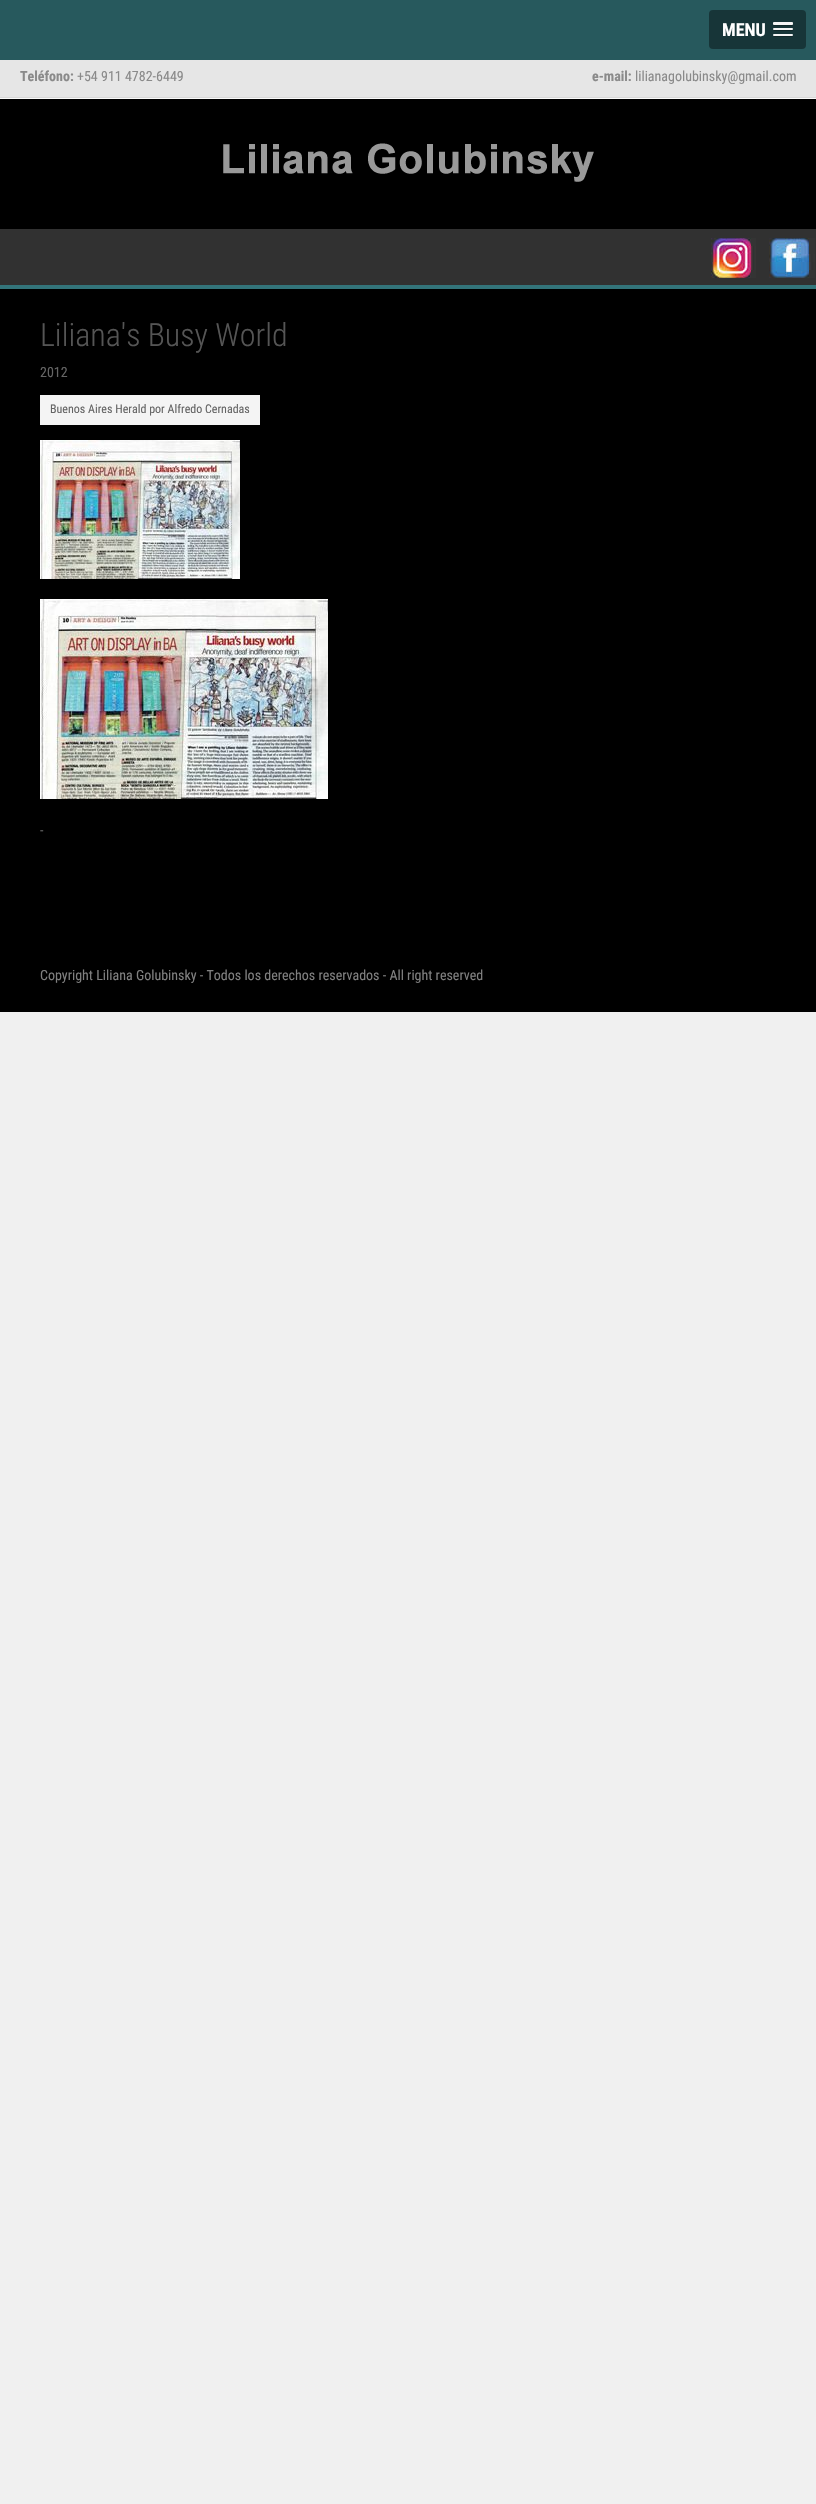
#include "include/core/SkBlurTypes.h"
#include "include/core/SkCanvas.h"
#include "include/core/SkData.h"
#include "include/core/SkFont.h"
#include "include/core/SkFontMgr.h"
#include "include/core/SkImage.h"
#include "include/core/SkMaskFilter.h"
#include "include/core/SkPaint.h"
#include "include/core/SkPathBuilder.h"
#include "include/core/SkTextBlob.h"
#include "include/effects/SkDashPathEffect.h"
#include "include/effects/SkGradientShader.h"
#include "include/utils/SkParsePath.h"

extern sk_sp<SkFontMgr> fontMgr;

static SkFont font(const char* family, int weight, float size, bool italic = false) {
    SkFontStyle style(weight, SkFontStyle::kNormal_Width,
        italic ? SkFontStyle::kItalic_Slant : SkFontStyle::kUpright_Slant);
    SkFont result(fontMgr->matchFamilyStyle(family, style), size);
    result.setSubpixel(true);
    return result;
}

static void drawLabel(SkCanvas* canvas, const char* s, float x, float y, const SkFont& font, SkColor color) {
    SkPaint ink(SkColor4f::FromColor(color));
    ink.setAntiAlias(true);
    canvas->drawString(s, x, y, font, ink);
}

static void fillRect(SkCanvas* canvas, float x, float y, float w, float h, SkColor color) {
    SkPaint ink(SkColor4f::FromColor(color));
    ink.setAntiAlias(true);
    canvas->drawRect(SkRect::MakeXYWH(x, y, w, h), ink);
}

static void fillRRect(SkCanvas* canvas, float x, float y, float w, float h, float radius, SkColor color) {
    SkPaint ink(SkColor4f::FromColor(color));
    ink.setAntiAlias(true);
    canvas->drawRoundRect(SkRect::MakeXYWH(x, y, w, h), radius, radius, ink);
}

static void drawPhoto(SkCanvas* canvas, const char* path, float x, float y, float w, float h) {
    auto image = SkImages::DeferredFromEncodedData(SkData::MakeFromFileName(path));
    canvas->drawImageRect(image, SkRect::MakeXYWH(x, y, w, h), SkSamplingOptions());
}

static SkPath parsePath(const char* data, bool evenOdd = false) {
    SkPath result = *SkParsePath::FromSVGString(data);
    if (evenOdd) result.setFillType(SkPathFillType::kEvenOdd);
    return result;
}

void draw(SkCanvas* canvas) {
    SkPaint paint;
    paint.setAntiAlias(true);
    canvas->clear(0xFFF0F0F0);
    fillRect(canvas, 0, 0, 816, 60, 0xFF27595D);
    fillRRect(canvas, 709, 10, 97, 39, 4, 0xFF173538);
    SkFont font1 = font("Roboto Condensed", 700, 18);
    drawLabel(canvas, "MENU", 722, 36, font1, 0xFFFFFFFF);
    paint.setColor(0xFF11282A);
    canvas->drawPath(parsePath("M773 24C773 26.5 774 26 777 26H789C792 26 793 26.5 793 24C793 24.5 792.5 25 792 25H774C773.5 25 773 24.5 773 24Z"), paint);
    fillRRect(canvas, 773, 22, 20, 3, 1, 0xFFF5F5F5);
    canvas->drawPath(parsePath("M773 29.5C772 31 775 31 777 31H789C791 31 794 31 793 29.5L792 30H774Z"), paint);
    fillRRect(canvas, 773, 28, 20, 2, 1, 0xFFF5F5F5);
    canvas->drawPath(parsePath("M773 35.5C772 37 775 37 777 37H789C791 37 794 37 793 35.5L792 36H774Z"), paint);
    fillRRect(canvas, 773, 34, 20, 2, 1, 0xFFF5F5F5);
    fillRect(canvas, 0, 99, 816, 913, 0xFF000000);
    fillRect(canvas, 0, 60, 816, 37, 0xFFE6E6E6);
    fillRect(canvas, 0, 97, 816, 1, 0xFFD8D8D8);
    fillRect(canvas, 0, 98, 816, 1, 0xFFFAFAFA);
    SkFont font2 = font("Roboto Condensed", 700, 14);
    drawLabel(canvas, "Teléfono:", 20, 81, font2, 0xFF8A8A8A);
    SkFont font3 = font("Roboto Condensed", 400, 14);
    drawLabel(canvas, "+54 911 4782-6449", 77, 81, font3, 0xFF8A8A8A);
    drawLabel(canvas, "e-mail:", 592, 81, font2, 0xFF8A8A8A);
    drawLabel(canvas, "lilianagolubinsky@gmail.com", 635, 81, font3, 0xFF8A8A8A);
    drawPhoto(canvas, "assets/img1.png", 223, 143, 371, 39);
    fillRect(canvas, 0, 229, 816, 56, 0xFF313131);
    fillRect(canvas, 0, 285, 816, 4, 0xFF33747A);
    drawPhoto(canvas, "assets/img2.png", 711, 238, 45, 40);
    drawPhoto(canvas, "assets/img3.png", 769, 238, 46, 40);
    SkFont font4 = font("Roboto Condensed", 300, 32);
    drawLabel(canvas, "Liliana's Busy World", 40, 346, font4, 0xFF555555);
    drawLabel(canvas, "2012", 40, 377, font3, 0xFF656565);
    fillRect(canvas, 40, 395, 220, 30, 0xFFF4F4F4);
    SkFont font5 = font("Roboto Condensed", 400, 12);
    drawLabel(canvas, "Buenos Aires Herald por Alfredo Cernadas", 50, 413, font5, 0xFF656565);
    drawPhoto(canvas, "assets/img4.png", 40, 440, 200, 139);
    drawPhoto(canvas, "assets/img5.png", 40, 599, 288, 200);
    drawLabel(canvas, "-", 40, 835, font3, 0xFF656565);
    drawLabel(canvas, "Copyright Liliana Golubinsky - Todos los derechos reservados - All right reserved", 40, 980, font3, 0xFF808080);
}
